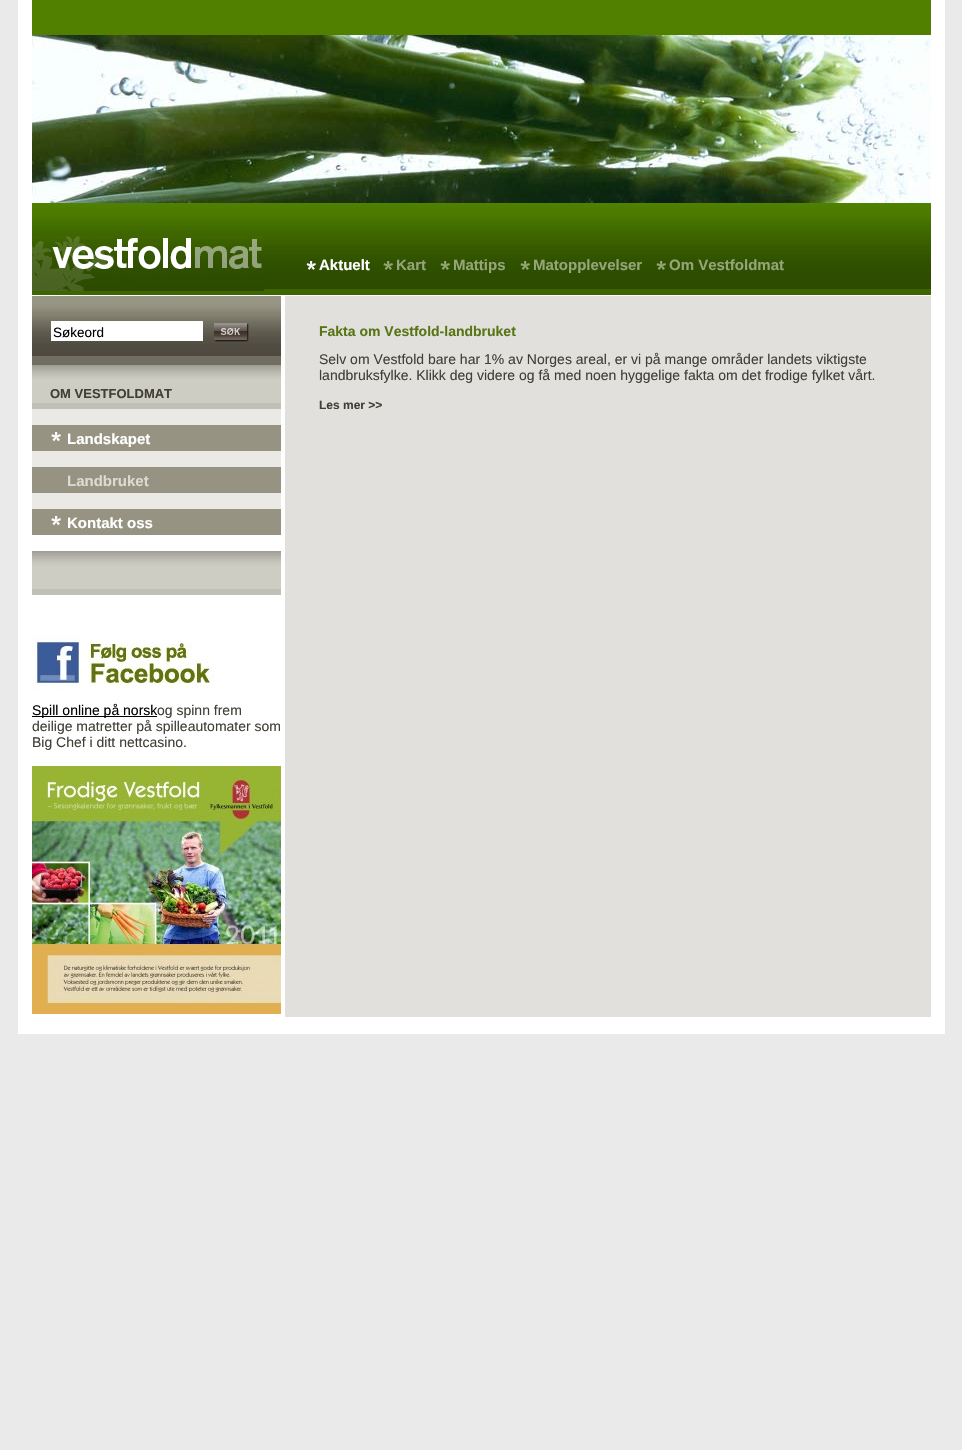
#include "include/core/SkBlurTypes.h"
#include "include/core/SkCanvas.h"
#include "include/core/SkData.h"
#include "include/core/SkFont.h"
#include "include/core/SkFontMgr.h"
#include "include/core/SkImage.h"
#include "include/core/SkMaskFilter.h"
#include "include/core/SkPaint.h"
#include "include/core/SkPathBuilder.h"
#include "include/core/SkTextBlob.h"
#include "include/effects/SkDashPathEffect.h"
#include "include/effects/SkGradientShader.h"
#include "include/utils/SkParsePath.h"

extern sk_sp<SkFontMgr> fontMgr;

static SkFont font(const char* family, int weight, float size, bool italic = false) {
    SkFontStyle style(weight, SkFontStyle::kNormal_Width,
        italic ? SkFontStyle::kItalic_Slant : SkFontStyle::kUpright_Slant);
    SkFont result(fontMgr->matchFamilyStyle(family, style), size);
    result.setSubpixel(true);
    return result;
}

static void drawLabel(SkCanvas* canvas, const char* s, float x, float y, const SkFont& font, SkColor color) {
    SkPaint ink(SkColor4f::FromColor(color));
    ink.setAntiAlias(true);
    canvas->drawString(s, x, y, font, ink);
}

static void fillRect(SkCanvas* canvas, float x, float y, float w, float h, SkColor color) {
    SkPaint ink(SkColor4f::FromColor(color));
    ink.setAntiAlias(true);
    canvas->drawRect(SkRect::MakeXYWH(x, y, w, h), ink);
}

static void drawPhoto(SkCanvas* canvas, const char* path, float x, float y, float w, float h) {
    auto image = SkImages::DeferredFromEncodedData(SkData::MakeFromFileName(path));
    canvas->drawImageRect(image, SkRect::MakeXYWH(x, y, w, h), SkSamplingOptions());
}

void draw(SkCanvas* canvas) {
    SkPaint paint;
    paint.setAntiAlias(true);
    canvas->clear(0xFFEAEAEA);
    fillRect(canvas, 18, 0, 14, 1034, 0xFFFFFFFF);
    fillRect(canvas, 32, 0, 899, 35, 0xFF517F00);
    drawPhoto(canvas, "assets/img1.png", 32, 35, 899, 168);
    fillRect(canvas, 931, 0, 14, 1034, 0xFFFFFFFF);
    fillRect(canvas, 32, 289, 899, 6, 0xFF3E6600);
    drawPhoto(canvas, "assets/img2.png", 32, 203, 899, 86);
    drawPhoto(canvas, "assets/img3.png", 32, 236, 232, 55);
    drawPhoto(canvas, "assets/img4.png", 306, 261, 10, 9);
    SkFont font1 = font("Liberation Sans", 700, 15);
    drawLabel(canvas, "Aktuelt", 319, 270, font1, 0xFFFFFFFF);
    drawPhoto(canvas, "assets/img5.png", 383, 261, 10, 9);
    drawLabel(canvas, "Kart", 396, 270, font1, 0xFF95A57A);
    drawPhoto(canvas, "assets/img5.png", 440, 261, 10, 9);
    drawLabel(canvas, "Mattips", 453, 270, font1, 0xFF95A57A);
    drawPhoto(canvas, "assets/img5.png", 520, 261, 10, 9);
    drawLabel(canvas, "Matopplevelser", 533, 270, font1, 0xFF95A57A);
    drawPhoto(canvas, "assets/img5.png", 656, 261, 10, 9);
    drawLabel(canvas, "Om Vestfoldmat", 669, 270, font1, 0xFF95A57A);
    fillRect(canvas, 32, 295, 899, 739, 0xFFFFFFFF);
    fillRect(canvas, 32, 356, 249, 9, 0xFF716D60);
    drawPhoto(canvas, "assets/img6.png", 32, 296, 249, 60);
    fillRect(canvas, 51, 321, 152, 20, 0xFFFFFFFF);
    SkFont font2 = font("Liberation Sans", 400, 13.5f);
    drawLabel(canvas, "Søkeord", 53, 337, font2, 0xFF000000);
    drawPhoto(canvas, "assets/img7.png", 214, 323, 35, 19);
    fillRect(canvas, 32, 403, 249, 6, 0xFFC1C0B7);
    drawPhoto(canvas, "assets/img8.png", 32, 365, 249, 38);
    SkFont font3 = font("Liberation Sans", 700, 13);
    drawLabel(canvas, "OM VESTFOLDMAT", 50, 398, font3, 0xFF423F37);
    fillRect(canvas, 32, 409, 249, 16, 0xFFEAE9E5);
    fillRect(canvas, 32, 425, 249, 26, 0xFF969382);
    drawPhoto(canvas, "assets/img9.png", 51, 432, 10, 10);
    drawLabel(canvas, "Landskapet", 67, 444, font1, 0xFFFFFFFF);
    fillRect(canvas, 32, 451, 249, 16, 0xFFEAE9E5);
    fillRect(canvas, 32, 467, 249, 26, 0xFF969382);
    drawLabel(canvas, "Landbruket", 67, 486, font1, 0xFFDCDBD3);
    fillRect(canvas, 32, 493, 249, 16, 0xFFEAE9E5);
    fillRect(canvas, 32, 509, 249, 26, 0xFF969382);
    drawPhoto(canvas, "assets/img9.png", 51, 516, 10, 10);
    drawLabel(canvas, "Kontakt oss", 67, 528, font1, 0xFFFFFFFF);
    fillRect(canvas, 32, 589, 249, 6, 0xFFC1C0B7);
    drawPhoto(canvas, "assets/img8.png", 32, 551, 249, 38);
    drawPhoto(canvas, "assets/img10.png", 32, 635, 183, 57);
    fillRect(canvas, 32, 716, 125, 1, 0xFF000000);
    SkFont font4 = font("Liberation Sans", 400, 14);
    drawLabel(canvas, "Spill online på norsk", 32, 715, font4, 0xFF000000);
    drawLabel(canvas, "og spinn frem", 157, 715, font4, 0xFF423F37);
    drawLabel(canvas, "deilige matretter på spilleautomater som", 32, 731, font4, 0xFF423F37);
    drawLabel(canvas, "Big Chef i ditt nettcasino.", 32, 747, font4, 0xFF423F37);
    drawPhoto(canvas, "assets/img11.png", 32, 766, 249, 248);
    fillRect(canvas, 285, 296, 646, 721, 0xFFE1E0DC);
    SkFont font5 = font("Liberation Sans", 700, 14);
    drawLabel(canvas, "Fakta om Vestfold-landbruket", 319, 336, font5, 0xFF587516);
    drawLabel(canvas, "Selv om Vestfold bare har 1% av Norges areal, er vi på mange områder landets viktigste", 319, 364, font4, 0xFF423F37);
    drawLabel(canvas, "landbruksfylke. Klikk deg videre og få med noen hyggelige fakta om det frodige fylket vårt.", 319, 380, font4, 0xFF423F37);
    SkFont font6 = font("Liberation Sans", 700, 12);
    drawLabel(canvas, "Les mer >>", 319, 409, font6, 0xFF423F37);
}
